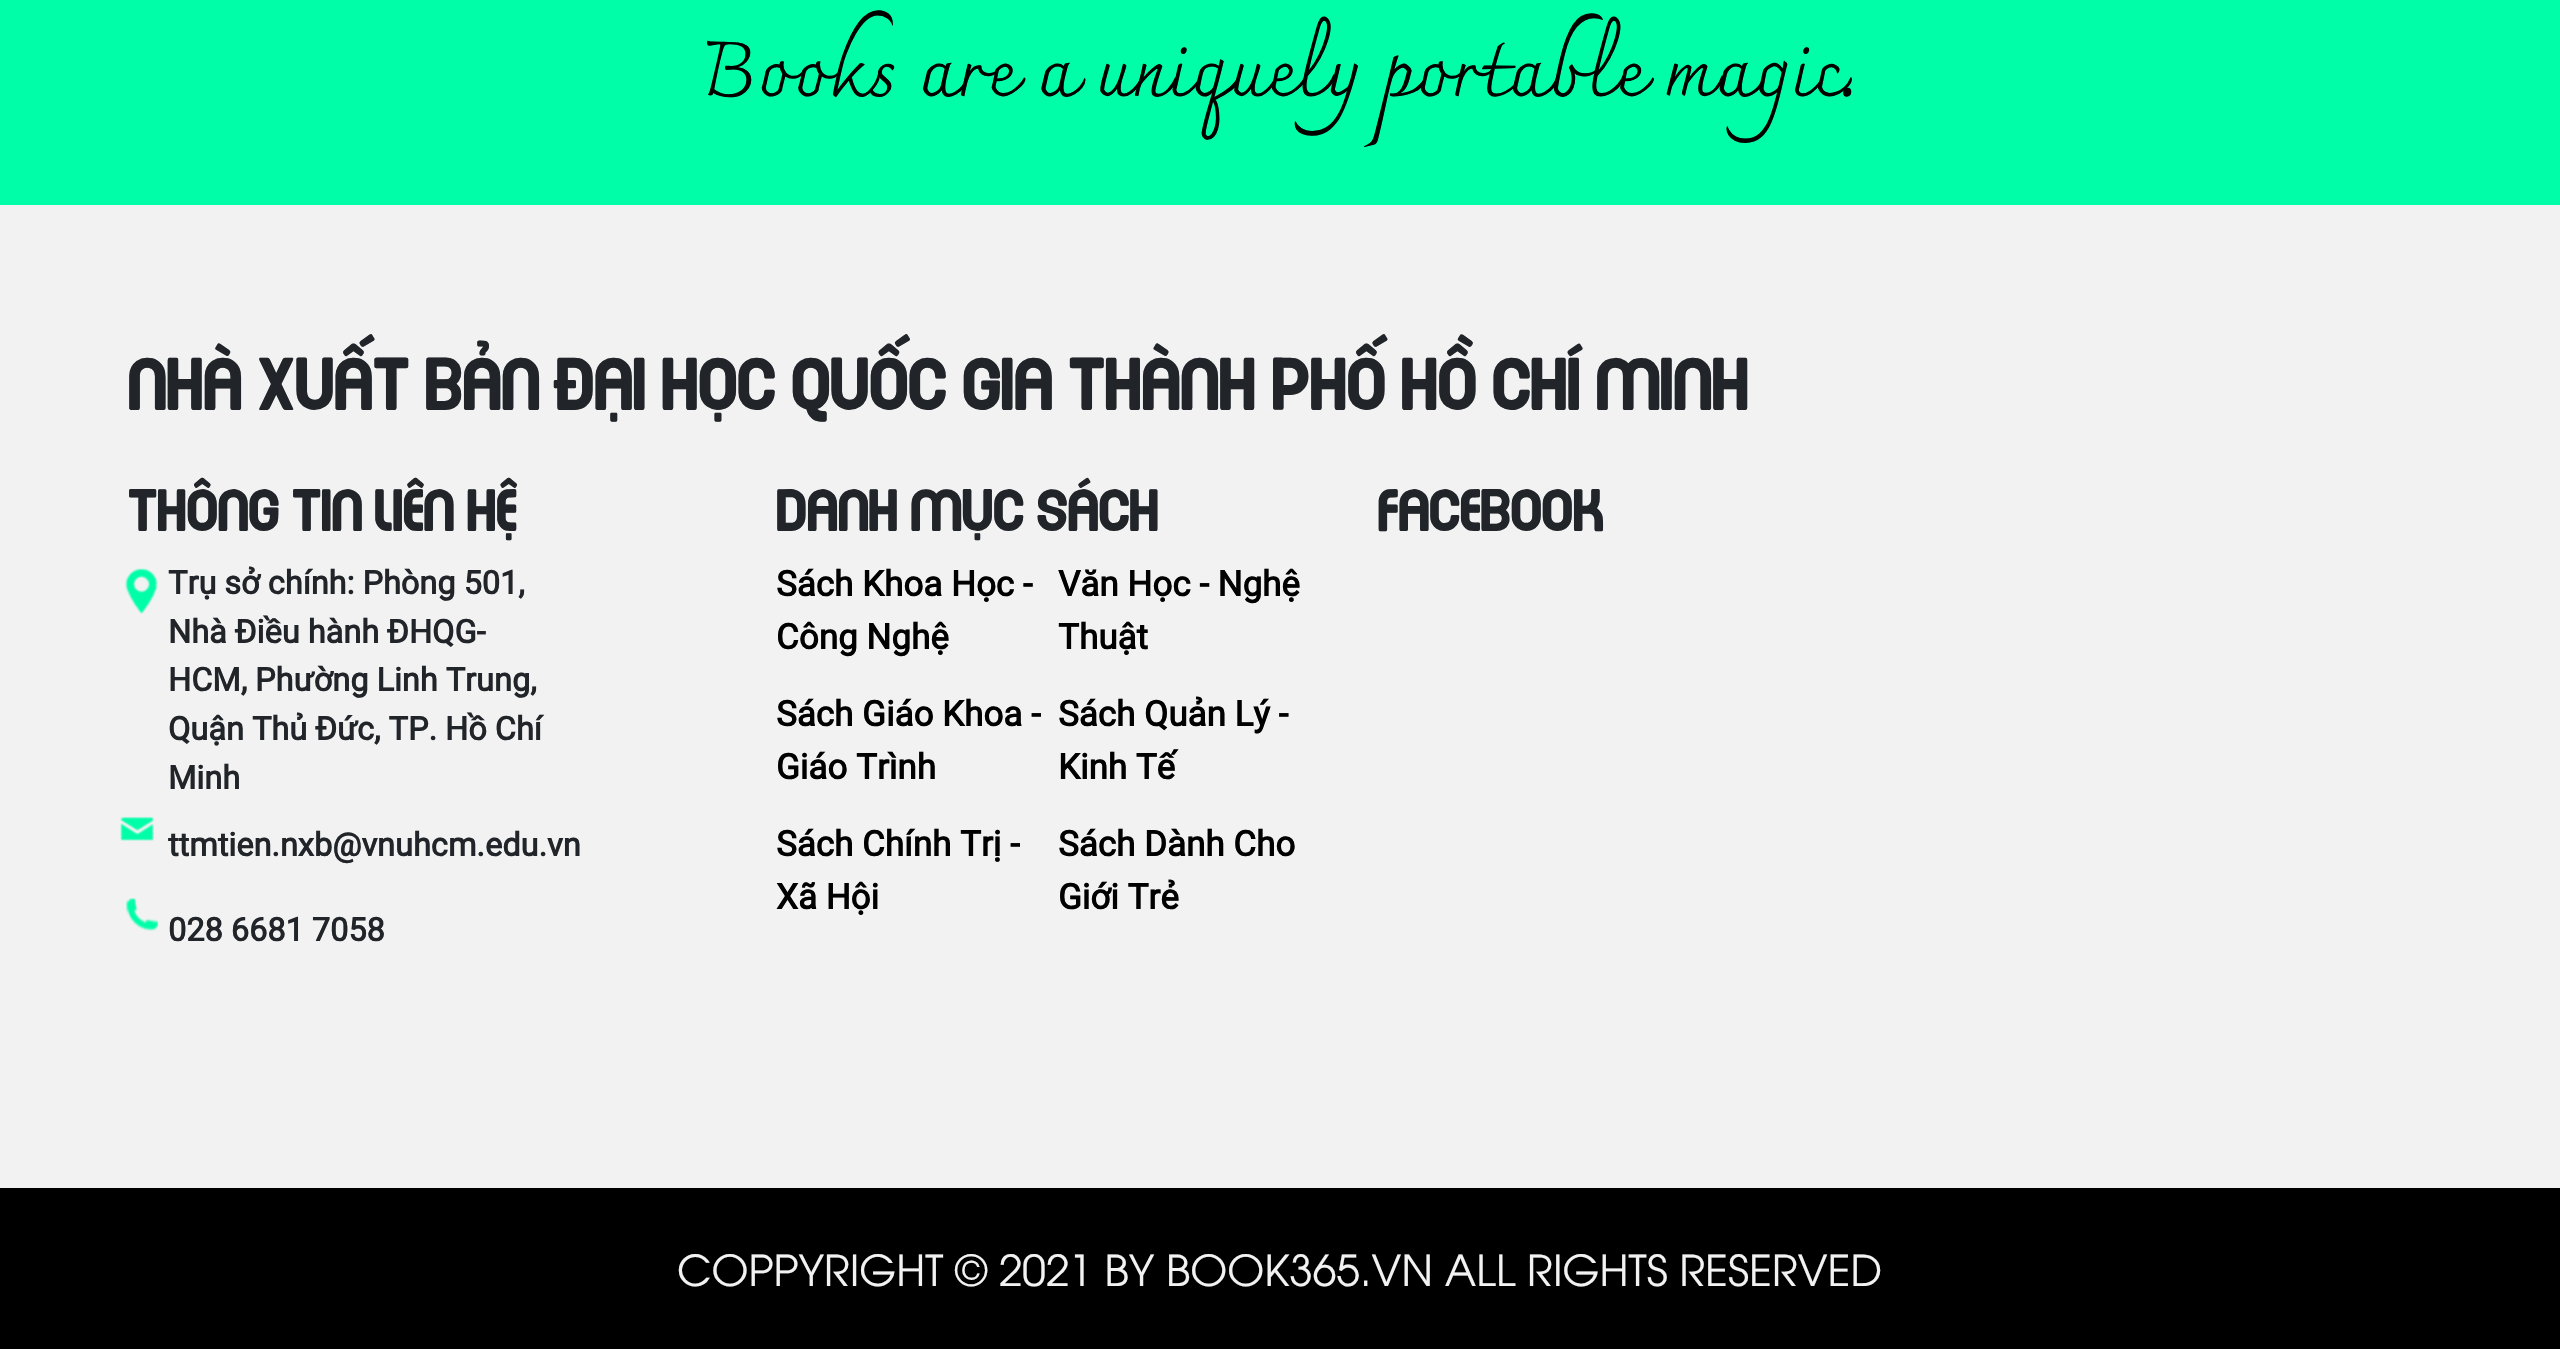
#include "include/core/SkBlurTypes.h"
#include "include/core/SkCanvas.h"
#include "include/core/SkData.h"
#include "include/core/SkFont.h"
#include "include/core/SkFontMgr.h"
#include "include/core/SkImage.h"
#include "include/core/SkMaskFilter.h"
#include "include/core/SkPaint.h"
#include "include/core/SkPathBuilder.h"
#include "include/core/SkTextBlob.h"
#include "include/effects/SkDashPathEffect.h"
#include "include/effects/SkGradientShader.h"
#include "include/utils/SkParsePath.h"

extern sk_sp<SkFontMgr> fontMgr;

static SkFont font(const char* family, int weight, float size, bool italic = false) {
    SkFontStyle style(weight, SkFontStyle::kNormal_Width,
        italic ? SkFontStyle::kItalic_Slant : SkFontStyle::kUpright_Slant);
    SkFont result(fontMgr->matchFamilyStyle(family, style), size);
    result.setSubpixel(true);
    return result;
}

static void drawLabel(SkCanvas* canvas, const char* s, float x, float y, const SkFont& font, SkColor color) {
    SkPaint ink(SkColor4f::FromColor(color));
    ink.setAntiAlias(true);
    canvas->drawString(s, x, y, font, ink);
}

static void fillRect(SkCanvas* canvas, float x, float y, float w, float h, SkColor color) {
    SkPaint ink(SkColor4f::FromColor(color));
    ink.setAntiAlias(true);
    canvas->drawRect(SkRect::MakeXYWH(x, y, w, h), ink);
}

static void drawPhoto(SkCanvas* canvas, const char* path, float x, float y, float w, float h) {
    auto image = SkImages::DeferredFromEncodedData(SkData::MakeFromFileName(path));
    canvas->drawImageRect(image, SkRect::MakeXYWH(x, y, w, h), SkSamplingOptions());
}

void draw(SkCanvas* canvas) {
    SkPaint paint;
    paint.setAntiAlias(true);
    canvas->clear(0xFFF2F2F2);
    fillRect(canvas, 0, 0, 2560, 205, 0xFF00FEA8);
    SkFont font1 = font("Charmonman", 400, 77.5f);
    drawLabel(canvas, "Books are a uniquely portable magic.", 702, 96, font1, 0xFF000000);
    SkFont font2 = font("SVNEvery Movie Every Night", 400, 62.5f);
    drawLabel(canvas, "Nhà xuất bản Đại học Quốc gia Thành phố Hồ Chí Minh", 128, 410, font2, 0xFF212529);
    SkFont font3 = font("SVNEvery Movie Every Night", 400, 50);
    drawLabel(canvas, "Thông tin liên hệ", 128, 531, font3, 0xFF212529);
    drawPhoto(canvas, "assets/img1.png", 125, 568, 33, 46);
    SkFont font4 = font("Roboto", 700, 32.5f);
    drawLabel(canvas, "Trụ sở chính: Phòng 501,", 168, 594, font4, 0xFF212529);
    drawLabel(canvas, "Nhà Điều hành ĐHQG-", 168, 643, font4, 0xFF212529);
    drawLabel(canvas, "HCM, Phường Linh Trung,", 168, 691, font4, 0xFF212529);
    drawLabel(canvas, "Quận Thủ Đức, TP. Hồ Chí", 168, 740, font4, 0xFF212529);
    drawLabel(canvas, "Minh", 168, 789, font4, 0xFF212529);
    drawPhoto(canvas, "assets/img2.png", 120, 816, 34, 25);
    drawLabel(canvas, "ttmtien.nxb@vnuhcm.edu.vn", 168, 856, font4, 0xFF212529);
    drawPhoto(canvas, "assets/img3.png", 126, 898, 33, 33);
    drawLabel(canvas, "028 6681 7058", 168, 941, font4, 0xFF212529);
    drawLabel(canvas, "Danh mục sách", 776, 531, font3, 0xFF212529);
    SkFont font5 = font("Roboto", 700, 35);
    drawLabel(canvas, "Sách Khoa Học -", 776, 596, font5, 0xFF000000);
    drawLabel(canvas, "Công Nghệ", 776, 649, font5, 0xFF000000);
    drawLabel(canvas, "Văn Học - Nghệ", 1058, 596, font5, 0xFF000000);
    drawLabel(canvas, "Thuật", 1058, 649, font5, 0xFF000000);
    drawLabel(canvas, "Sách Giáo Khoa -", 776, 726, font5, 0xFF000000);
    drawLabel(canvas, "Giáo Trình", 776, 779, font5, 0xFF000000);
    drawLabel(canvas, "Sách Quản Lý -", 1058, 726, font5, 0xFF000000);
    drawLabel(canvas, "Kinh Tế", 1058, 779, font5, 0xFF000000);
    drawLabel(canvas, "Sách Chính Trị -", 776, 856, font5, 0xFF000000);
    drawLabel(canvas, "Xã Hội", 776, 909, font5, 0xFF000000);
    drawLabel(canvas, "Sách Dành Cho", 1058, 856, font5, 0xFF000000);
    drawLabel(canvas, "Giới Trẻ", 1058, 909, font5, 0xFF000000);
    drawLabel(canvas, "Facebook", 1378, 531, font3, 0xFF212529);
    fillRect(canvas, 0, 1188, 2560, 161, 0xFF000000);
    SkFont font6 = font("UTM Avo", 400, 42.5f);
    drawLabel(canvas, "COPPYRIGHT © 2021 BY BOOK365.VN ALL RIGHTS RESERVED", 677, 1286, font6, 0xFFF2F2F2);
}
